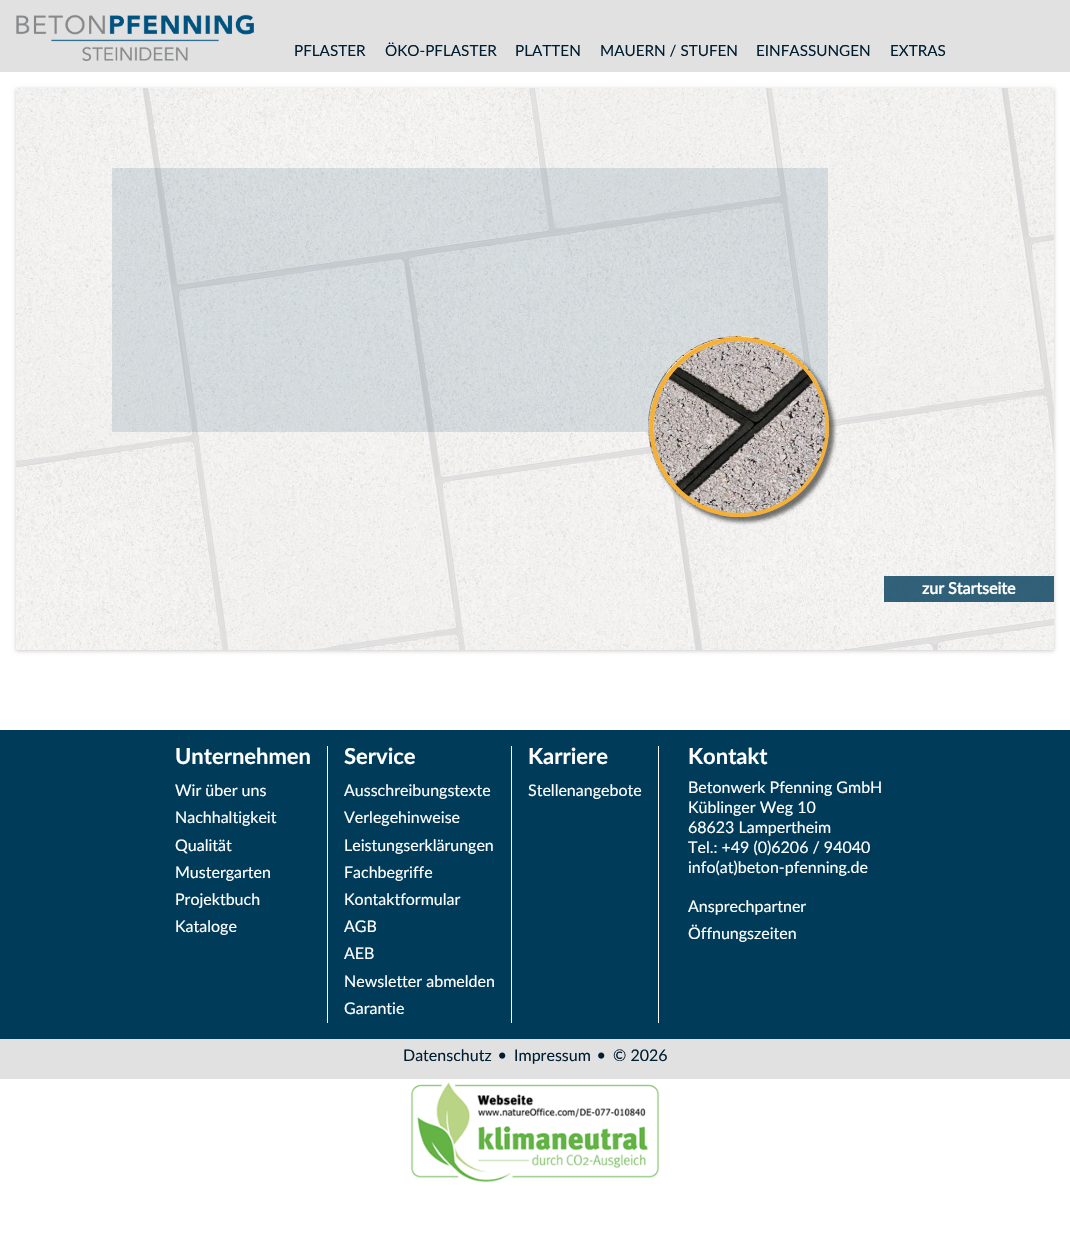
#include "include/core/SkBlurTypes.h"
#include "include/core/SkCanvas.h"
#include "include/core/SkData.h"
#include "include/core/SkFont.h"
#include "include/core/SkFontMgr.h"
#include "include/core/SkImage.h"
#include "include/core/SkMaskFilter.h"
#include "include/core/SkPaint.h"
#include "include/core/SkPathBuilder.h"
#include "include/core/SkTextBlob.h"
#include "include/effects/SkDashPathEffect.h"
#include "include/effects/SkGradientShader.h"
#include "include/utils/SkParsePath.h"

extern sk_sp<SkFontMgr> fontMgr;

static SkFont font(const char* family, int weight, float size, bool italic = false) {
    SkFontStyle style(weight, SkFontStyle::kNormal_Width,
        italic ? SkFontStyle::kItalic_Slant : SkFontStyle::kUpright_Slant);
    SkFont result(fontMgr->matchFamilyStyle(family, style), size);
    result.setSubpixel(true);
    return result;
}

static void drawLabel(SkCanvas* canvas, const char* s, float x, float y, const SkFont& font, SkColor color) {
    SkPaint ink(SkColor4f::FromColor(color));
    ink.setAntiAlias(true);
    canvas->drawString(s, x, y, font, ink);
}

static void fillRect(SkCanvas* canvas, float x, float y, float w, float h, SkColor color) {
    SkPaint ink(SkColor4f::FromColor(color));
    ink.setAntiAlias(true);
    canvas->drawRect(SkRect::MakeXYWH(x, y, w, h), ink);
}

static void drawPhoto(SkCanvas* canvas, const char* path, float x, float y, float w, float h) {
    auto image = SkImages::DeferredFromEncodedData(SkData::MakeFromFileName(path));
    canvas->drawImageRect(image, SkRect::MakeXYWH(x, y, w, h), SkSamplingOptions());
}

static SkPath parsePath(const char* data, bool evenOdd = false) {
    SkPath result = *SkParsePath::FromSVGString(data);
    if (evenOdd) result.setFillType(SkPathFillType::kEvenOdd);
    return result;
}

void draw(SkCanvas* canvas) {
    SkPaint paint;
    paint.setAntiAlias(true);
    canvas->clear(0xFFFFFFFF);
    fillRect(canvas, 0, 0, 1070, 72, 0xFFE1E1E1);
    drawPhoto(canvas, "assets/img1.png", 16, 14, 238, 47);
    SkFont font1 = font("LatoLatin", 400, 15.25f);
    drawLabel(canvas, "PFLASTER", 294, 56, font1, 0xFF001E32);
    drawLabel(canvas, "ÖKO-PFLASTER", 385, 56, font1, 0xFF001E32);
    drawLabel(canvas, "PLATTEN", 515, 56, font1, 0xFF001E32);
    drawLabel(canvas, "MAUERN / STUFEN", 600, 56, font1, 0xFF001E32);
    drawLabel(canvas, "EINFASSUNGEN", 756, 56, font1, 0xFF001E32);
    drawLabel(canvas, "EXTRAS", 890, 56, font1, 0xFF001E32);
    canvas->save();
    canvas->clipPath(parsePath("M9 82H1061V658H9ZM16 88H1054V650H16Z", true), true);
    paint.setColor(0x33000000);
    paint.setMaskFilter(SkMaskFilter::MakeBlur(kNormal_SkBlurStyle, 2));
    canvas->drawRect(SkRect::MakeXYWH(16, 89, 1038, 562), paint);
    paint.setMaskFilter(nullptr);
    canvas->restore();
    drawPhoto(canvas, "assets/img2.png", 16, 88, 1038, 562);
    fillRect(canvas, 112, 168, 716, 264, 0x1F003C5A);
    drawPhoto(canvas, "assets/img3.png", 648, 336, 190, 190);
    fillRect(canvas, 884, 576, 170, 26, 0xCC003C5A);
    SkFont font2 = font("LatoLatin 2", 700, 16);
    drawLabel(canvas, "zur Startseite", 922, 594, font2, 0xFFFFFFFF);
    fillRect(canvas, 0, 730, 1070, 309, 0xFF003C5A);
    fillRect(canvas, 327, 746, 1, 277, 0xFFFFFFFF);
    SkFont font3 = font("LatoLatin", 700, 22);
    drawLabel(canvas, "Unternehmen", 175, 764, font3, 0xFFFFFFFF);
    SkFont font4 = font("LatoLatin", 400, 16);
    drawLabel(canvas, "Wir über uns", 175, 796, font4, 0xFFFFFFFF);
    drawLabel(canvas, "Nachhaltigkeit", 175, 823, font4, 0xFFFFFFFF);
    drawLabel(canvas, "Qualität", 175, 851, font4, 0xFFFFFFFF);
    drawLabel(canvas, "Mustergarten", 175, 878, font4, 0xFFFFFFFF);
    drawLabel(canvas, "Projektbuch", 175, 905, font4, 0xFFFFFFFF);
    drawLabel(canvas, "Kataloge", 175, 932, font4, 0xFFFFFFFF);
    fillRect(canvas, 511, 746, 1, 277, 0xFFFFFFFF);
    drawLabel(canvas, "Service", 344, 764, font3, 0xFFFFFFFF);
    drawLabel(canvas, "Ausschreibungstexte", 344, 796, font4, 0xFFFFFFFF);
    drawLabel(canvas, "Verlegehinweise", 344, 823, font4, 0xFFFFFFFF);
    drawLabel(canvas, "Leistungserklärungen", 344, 851, font4, 0xFFFFFFFF);
    drawLabel(canvas, "Fachbegriffe", 344, 878, font4, 0xFFFFFFFF);
    drawLabel(canvas, "Kontaktformular", 344, 905, font4, 0xFFFFFFFF);
    drawLabel(canvas, "AGB", 344, 932, font4, 0xFFFFFFFF);
    drawLabel(canvas, "AEB", 344, 959, font4, 0xFFFFFFFF);
    drawLabel(canvas, "Newsletter abmelden", 344, 987, font4, 0xFFFFFFFF);
    drawLabel(canvas, "Garantie", 344, 1014, font4, 0xFFFFFFFF);
    fillRect(canvas, 658, 746, 1, 277, 0xFFFFFFFF);
    drawLabel(canvas, "Karriere", 528, 764, font3, 0xFFFFFFFF);
    drawLabel(canvas, "Stellenangebote", 528, 796, font4, 0xFFFFFFFF);
    drawLabel(canvas, "Kontakt", 688, 764, font3, 0xFFFFFFFF);
    drawLabel(canvas, "Betonwerk Pfenning GmbH", 688, 793, font4, 0xFFFFFFFF);
    drawLabel(canvas, "Küblinger Weg 10", 688, 813, font4, 0xFFFFFFFF);
    drawLabel(canvas, "68623 Lampertheim", 688, 833, font4, 0xFFFFFFFF);
    drawLabel(canvas, "Tel.: +49 (0)6206 / 94040", 688, 853, font4, 0xFFFFFFFF);
    drawLabel(canvas, "info(at)beton-pfenning.de", 688, 873, font4, 0xFFFFFFFF);
    drawLabel(canvas, "Ansprechpartner", 688, 912, font4, 0xFFFFFFFF);
    drawLabel(canvas, "Öffnungszeiten", 688, 939, font4, 0xFFFFFFFF);
    fillRect(canvas, 0, 1039, 1070, 40, 0xFFE1E1E1);
    drawLabel(canvas, "Datenschutz", 403, 1061, font4, 0xFF001E32);
    drawPhoto(canvas, "assets/img4.png", 499, 1052, 7, 7);
    drawLabel(canvas, "Impressum", 514, 1061, font4, 0xFF001E32);
    drawPhoto(canvas, "assets/img4.png", 598, 1052, 7, 7);
    drawLabel(canvas, "© 2026", 613, 1061, font4, 0xFF001E32);
    drawPhoto(canvas, "assets/img5.png", 410, 1082, 250, 101);
}
